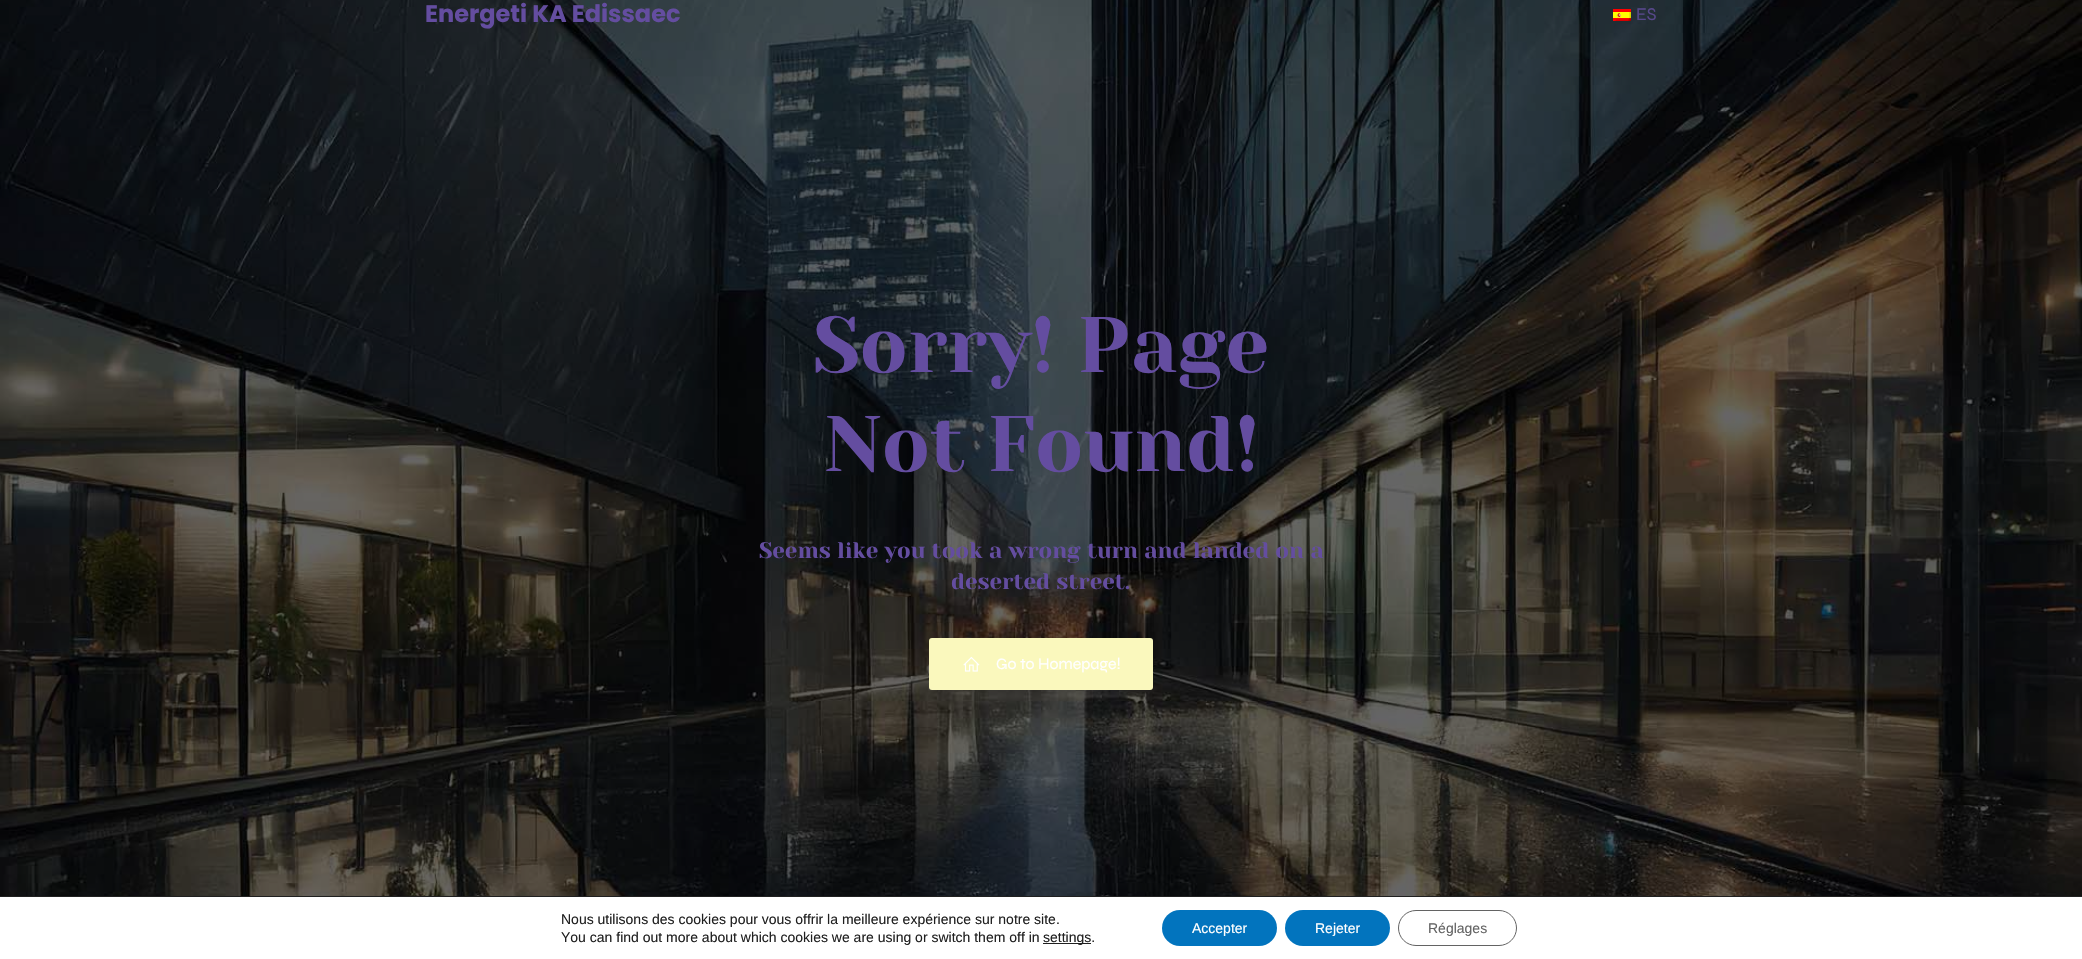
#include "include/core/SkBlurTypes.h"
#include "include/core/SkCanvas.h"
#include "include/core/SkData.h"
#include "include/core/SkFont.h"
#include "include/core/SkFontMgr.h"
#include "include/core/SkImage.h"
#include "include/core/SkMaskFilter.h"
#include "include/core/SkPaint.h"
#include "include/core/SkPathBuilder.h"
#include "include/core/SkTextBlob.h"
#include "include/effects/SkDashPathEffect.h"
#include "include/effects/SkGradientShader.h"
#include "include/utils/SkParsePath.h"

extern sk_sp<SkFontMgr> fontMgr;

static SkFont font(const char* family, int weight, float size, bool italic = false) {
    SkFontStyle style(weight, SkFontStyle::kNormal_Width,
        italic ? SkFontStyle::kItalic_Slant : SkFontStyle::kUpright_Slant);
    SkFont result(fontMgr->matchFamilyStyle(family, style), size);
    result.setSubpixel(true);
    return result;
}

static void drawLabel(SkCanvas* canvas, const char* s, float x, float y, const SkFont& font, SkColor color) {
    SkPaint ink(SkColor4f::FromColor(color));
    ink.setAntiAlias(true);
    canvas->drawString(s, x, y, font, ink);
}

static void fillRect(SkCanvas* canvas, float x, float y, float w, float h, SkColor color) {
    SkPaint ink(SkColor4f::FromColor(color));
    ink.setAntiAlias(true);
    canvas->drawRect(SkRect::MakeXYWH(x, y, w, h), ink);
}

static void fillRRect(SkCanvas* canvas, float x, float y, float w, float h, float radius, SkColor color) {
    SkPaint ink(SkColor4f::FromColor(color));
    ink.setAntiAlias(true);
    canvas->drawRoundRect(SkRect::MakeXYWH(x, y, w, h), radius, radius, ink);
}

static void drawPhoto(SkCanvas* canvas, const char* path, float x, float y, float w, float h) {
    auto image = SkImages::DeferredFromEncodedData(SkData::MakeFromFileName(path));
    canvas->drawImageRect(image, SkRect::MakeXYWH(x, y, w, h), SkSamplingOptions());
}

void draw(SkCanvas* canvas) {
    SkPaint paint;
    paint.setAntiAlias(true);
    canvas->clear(0xFFFFFFFF);
    drawPhoto(canvas, "assets/img2.png", 0, 0, 2082, 896);
    SkFont font1 = font("Poppins", 700, 24);
    drawLabel(canvas, "Energeti KA Edissaec", 425, 22, font1, 0xFF644DA0);
    drawPhoto(canvas, "assets/img1.png", 1613, 9, 18, 12);
    SkFont font2 = font("Syne", 400, 18);
    drawLabel(canvas, "ES", 1636, 20, font2, 0xFF57478B);
    SkFont font3 = font("Yeseva One", 400, 78.5f);
    drawLabel(canvas, "Sorry! Page", 813, 372, font3, 0xFF644DA0);
    drawLabel(canvas, "Not Found!", 824, 471, font3, 0xFF644DA0);
    SkFont font4 = font("Yeseva One", 400, 22.4f);
    drawLabel(canvas, "Seems like you took a wrong turn and landed on a", 759, 558, font4, 0xFF644DA0);
    drawLabel(canvas, "deserted street.", 951, 589, font4, 0xFF644DA0);
    fillRRect(canvas, 929, 638, 224, 52, 3, 0xFFFAF8BD);
    drawPhoto(canvas, "assets/img3.png", 963, 656, 17, 16);
    SkFont font5 = font("Syne", 400, 16);
    drawLabel(canvas, "Go to Homepage!", 996, 669, font5, 0xFFFFFFFF);
    fillRect(canvas, 0, 896, 2082, 1, 0xFF202020);
    SkFont font6 = font("Liberation Sans", 400, 14);
    drawLabel(canvas, "Nous utilisons des cookies pour vous offrir la meilleure expérience sur notre site.", 561, 924, font6, 0xFF202020);
    drawLabel(canvas, "You can find out more about which cookies we are using or switch them off in", 561, 942, font6, 0xFF202020);
    fillRect(canvas, 1043, 943, 48, 1, 0xFF202020);
    drawLabel(canvas, "settings.", 1043, 942, font6, 0xFF202020);
    fillRRect(canvas, 1162, 910, 115, 36, 18, 0xFF0274BE);
    drawLabel(canvas, "Accepter", 1192, 933, font6, 0xFFFFFFFF);
    fillRRect(canvas, 1285, 910, 105, 36, 18, 0xFF0274BE);
    drawLabel(canvas, "Rejeter", 1315, 933, font6, 0xFFFFFFFF);
    paint.setStroke(true);
    paint.setStrokeWidth(1);
    paint.setColor(0xFF636363);
    canvas->drawRoundRect(SkRect::MakeXYWH(1398.5f, 910.5f, 118, 35), 17.5f, 17.5f, paint);
    drawLabel(canvas, "Réglages", 1428, 933, font6, 0xFF636363);
}
